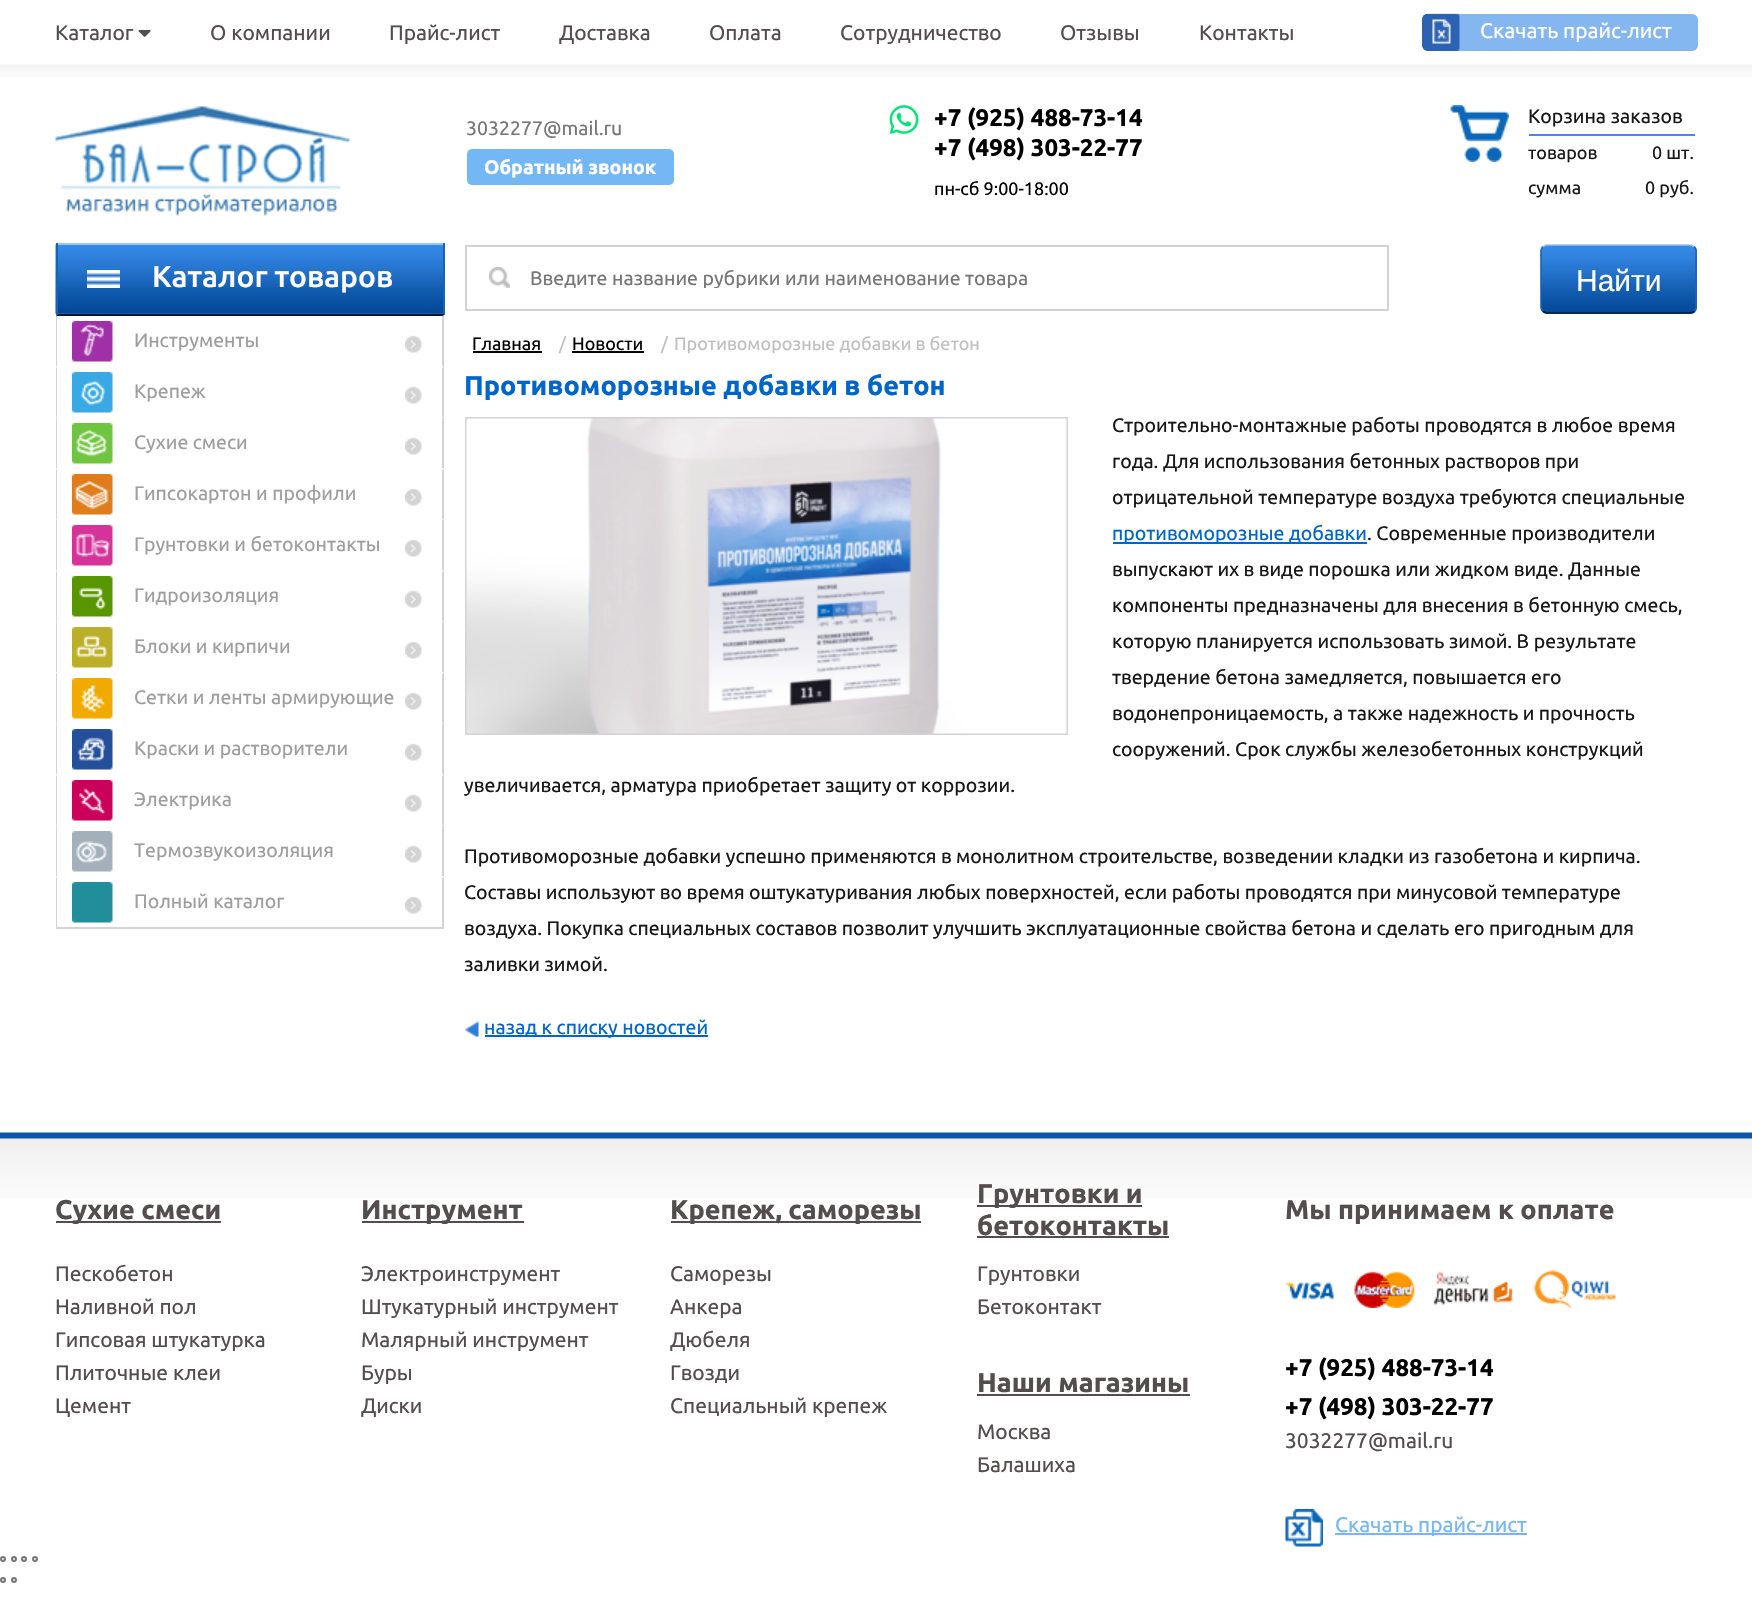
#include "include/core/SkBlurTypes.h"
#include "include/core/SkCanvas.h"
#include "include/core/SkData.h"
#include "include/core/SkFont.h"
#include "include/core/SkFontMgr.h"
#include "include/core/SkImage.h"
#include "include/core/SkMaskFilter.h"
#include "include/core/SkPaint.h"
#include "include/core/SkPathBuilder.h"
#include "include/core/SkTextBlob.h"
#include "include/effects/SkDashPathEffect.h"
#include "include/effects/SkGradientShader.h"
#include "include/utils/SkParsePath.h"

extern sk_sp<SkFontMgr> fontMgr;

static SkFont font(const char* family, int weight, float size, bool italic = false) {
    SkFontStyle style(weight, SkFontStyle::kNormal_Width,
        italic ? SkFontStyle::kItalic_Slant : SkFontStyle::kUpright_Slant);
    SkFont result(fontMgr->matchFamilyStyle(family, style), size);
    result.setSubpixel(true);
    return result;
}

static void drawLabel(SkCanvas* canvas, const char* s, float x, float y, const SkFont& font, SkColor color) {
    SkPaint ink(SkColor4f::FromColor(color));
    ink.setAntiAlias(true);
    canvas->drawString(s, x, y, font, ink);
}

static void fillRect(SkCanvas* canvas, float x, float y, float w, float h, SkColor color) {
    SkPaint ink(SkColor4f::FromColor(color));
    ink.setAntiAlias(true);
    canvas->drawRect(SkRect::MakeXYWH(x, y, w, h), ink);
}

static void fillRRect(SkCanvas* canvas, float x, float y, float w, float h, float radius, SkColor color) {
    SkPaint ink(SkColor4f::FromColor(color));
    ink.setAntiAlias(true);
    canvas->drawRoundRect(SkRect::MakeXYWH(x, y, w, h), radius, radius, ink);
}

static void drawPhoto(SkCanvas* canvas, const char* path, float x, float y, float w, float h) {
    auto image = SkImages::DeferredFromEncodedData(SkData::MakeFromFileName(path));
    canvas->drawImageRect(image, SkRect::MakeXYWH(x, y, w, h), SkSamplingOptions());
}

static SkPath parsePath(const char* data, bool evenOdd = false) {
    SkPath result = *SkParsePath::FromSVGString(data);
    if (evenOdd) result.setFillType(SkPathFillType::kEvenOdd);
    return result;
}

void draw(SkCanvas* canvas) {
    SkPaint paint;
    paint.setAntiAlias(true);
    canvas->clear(0xFFFFFFFF);
    drawPhoto(canvas, "assets/img1.png", 0, 1132, 1752, 66);
    drawPhoto(canvas, "assets/img2.png", 0, 64, 1752, 13);
    SkFont font1 = font("Ubuntu", 400, 21);
    drawLabel(canvas, "Каталог", 55, 40, font1, 0xFF534D4D);
    drawPhoto(canvas, "assets/img3.png", 138, 30, 13, 7);
    drawLabel(canvas, "О компании", 210, 40, font1, 0xFF534D4D);
    drawLabel(canvas, "Прайс-лист", 389, 40, font1, 0xFF534D4D);
    drawLabel(canvas, "Доставка", 559, 40, font1, 0xFF534D4D);
    drawLabel(canvas, "Оплата", 709, 40, font1, 0xFF534D4D);
    drawLabel(canvas, "Сотрудничество", 840, 40, font1, 0xFF534D4D);
    drawLabel(canvas, "Отзывы", 1060, 40, font1, 0xFF534D4D);
    drawLabel(canvas, "Контакты", 1199, 40, font1, 0xFF534D4D);
    fillRRect(canvas, 1422, 14, 276, 37, 6, 0xFF84B6EF);
    drawPhoto(canvas, "assets/img4.png", 1422, 13, 38, 38);
    drawLabel(canvas, "Скачать прайс-лист", 1480, 38, font1, 0xFFFFFFFF);
    drawPhoto(canvas, "assets/img5.png", 55, 106, 295, 110);
    SkFont font2 = font("Ubuntu", 400, 19.5f);
    drawLabel(canvas, "3032277@mail.ru", 466, 135, font2, 0xFF777777);
    fillRRect(canvas, 467, 149, 207, 36, 5, 0xFF73B7F4);
    SkFont font3 = font("Ubuntu", 700, 19.5f);
    drawLabel(canvas, "Обратный звонок", 484, 174, font3, 0xFFFFFFFF);
    drawPhoto(canvas, "assets/img6.png", 889, 105, 30, 29);
    SkFont font4 = font("Ubuntu", 700, 24);
    drawLabel(canvas, "+7 (925) 488-73-14", 934, 126, font4, 0xFF000000);
    drawLabel(canvas, "+7 (498) 303-22-77", 934, 156, font4, 0xFF000000);
    SkFont font5 = font("Ubuntu", 400, 18);
    drawLabel(canvas, "пн-сб 9:00-18:00", 934, 195, font5, 0xFF000000);
    drawPhoto(canvas, "assets/img7.png", 1450, 105, 59, 57);
    fillRect(canvas, 1529, 134, 166, 2, 0xFF4C86DD);
    drawLabel(canvas, "Корзина заказов", 1528, 123, font2, 0xFF181818);
    drawLabel(canvas, "товаров", 1528, 159, font5, 0xFF181818);
    drawLabel(canvas, "0 шт.", 1652, 159, font5, 0xFF181818);
    drawLabel(canvas, "сумма", 1528, 194, font5, 0xFF181818);
    drawLabel(canvas, "0 руб.", 1645, 194, font5, 0xFF181818);
    fillRect(canvas, 58, 313, 385, 1, 0xFF366EAE);
    drawPhoto(canvas, "assets/img8.png", 55, 244, 388, 70);
    fillRect(canvas, 56, 243, 388, 2, 0xFF9BC5F4);
    fillRect(canvas, 443, 243, 2, 72, 0xFF1B62B2);
    fillRect(canvas, 56, 314, 388, 2, 0xFF011934);
    fillRect(canvas, 56, 243, 2, 72, 0xFF1B62B2);
    drawPhoto(canvas, "assets/img9.png", 87, 270, 33, 18);
    SkFont font6 = font("Ubuntu", 500, 30);
    drawLabel(canvas, "Каталог товаров", 152, 287, font6, 0xFFFFFFFF);
    fillRect(canvas, 56, 927, 388, 2, 0xFFD3D3D3);
    drawPhoto(canvas, "assets/img10.png", 72, 321, 41, 41);
    paint.setColor(0xFFD3D3D3);
    canvas->drawPath(parsePath("M444 315V366H442V316Z"), paint);
    canvas->drawPath(parsePath("M56 366V315L57 316V366Z"), paint);
    drawPhoto(canvas, "assets/img11.png", 405, 335, 17, 18);
    drawLabel(canvas, "Инструменты", 134, 347, font2, 0xFF9E9E9E);
    drawPhoto(canvas, "assets/img12.png", 72, 372, 41, 41);
    canvas->drawPath(parsePath("M444 366V417H442V368Z"), paint);
    canvas->drawPath(parsePath("M56 417V366L57 368V417Z"), paint);
    drawPhoto(canvas, "assets/img11.png", 405, 386, 17, 18);
    drawLabel(canvas, "Крепеж", 134, 398, font2, 0xFF9E9E9E);
    drawPhoto(canvas, "assets/img13.png", 72, 423, 41, 41);
    canvas->drawPath(parsePath("M444 417V468H442V418Z"), paint);
    canvas->drawPath(parsePath("M56 468V417L57 418V468Z"), paint);
    drawPhoto(canvas, "assets/img11.png", 405, 437, 17, 18);
    drawLabel(canvas, "Сухие смеси", 134, 449, font2, 0xFF9E9E9E);
    drawPhoto(canvas, "assets/img14.png", 72, 474, 41, 41);
    canvas->drawPath(parsePath("M444 468V519H442V470Z"), paint);
    canvas->drawPath(parsePath("M56 519V468L57 470V519Z"), paint);
    drawPhoto(canvas, "assets/img11.png", 405, 488, 17, 18);
    drawLabel(canvas, "Гипсокартон и профили", 134, 500, font2, 0xFF9E9E9E);
    drawPhoto(canvas, "assets/img15.png", 72, 525, 41, 41);
    canvas->drawPath(parsePath("M444 519V570H442V520Z"), paint);
    canvas->drawPath(parsePath("M56 570V519L57 520V570Z"), paint);
    drawPhoto(canvas, "assets/img11.png", 405, 539, 17, 18);
    drawLabel(canvas, "Грунтовки и бетоконтакты", 134, 551, font2, 0xFF9E9E9E);
    drawPhoto(canvas, "assets/img16.png", 72, 576, 41, 41);
    canvas->drawPath(parsePath("M444 570V621H442V572Z"), paint);
    canvas->drawPath(parsePath("M56 621V570L57 572V621Z"), paint);
    drawPhoto(canvas, "assets/img11.png", 405, 590, 17, 18);
    drawLabel(canvas, "Гидроизоляция", 134, 602, font2, 0xFF9E9E9E);
    drawPhoto(canvas, "assets/img17.png", 72, 627, 41, 41);
    canvas->drawPath(parsePath("M444 621V672H442V622Z"), paint);
    canvas->drawPath(parsePath("M56 672V621L57 622V672Z"), paint);
    drawPhoto(canvas, "assets/img11.png", 405, 641, 17, 18);
    drawLabel(canvas, "Блоки и кирпичи", 134, 653, font2, 0xFF9E9E9E);
    drawPhoto(canvas, "assets/img18.png", 72, 678, 41, 41);
    canvas->drawPath(parsePath("M444 672V723H442V674Z"), paint);
    canvas->drawPath(parsePath("M56 723V672L57 674V723Z"), paint);
    drawPhoto(canvas, "assets/img11.png", 405, 692, 17, 18);
    drawLabel(canvas, "Сетки и ленты армирующие", 134, 704, font2, 0xFF9E9E9E);
    drawPhoto(canvas, "assets/img19.png", 72, 729, 41, 41);
    canvas->drawPath(parsePath("M444 723V774H442V724Z"), paint);
    canvas->drawPath(parsePath("M56 774V723L57 724V774Z"), paint);
    drawPhoto(canvas, "assets/img11.png", 405, 743, 17, 18);
    drawLabel(canvas, "Краски и растворители", 134, 755, font2, 0xFF9E9E9E);
    drawPhoto(canvas, "assets/img20.png", 72, 780, 41, 41);
    canvas->drawPath(parsePath("M444 774V825H442V776Z"), paint);
    canvas->drawPath(parsePath("M56 825V774L57 776V825Z"), paint);
    drawPhoto(canvas, "assets/img11.png", 405, 794, 17, 18);
    drawLabel(canvas, "Электрика", 134, 806, font2, 0xFF9E9E9E);
    drawPhoto(canvas, "assets/img21.png", 72, 831, 41, 41);
    canvas->drawPath(parsePath("M444 825V876H442V826Z"), paint);
    canvas->drawPath(parsePath("M56 876V825L57 826V876Z"), paint);
    drawPhoto(canvas, "assets/img11.png", 405, 845, 17, 18);
    drawLabel(canvas, "Термозвукоизоляция", 134, 857, font2, 0xFF9E9E9E);
    drawPhoto(canvas, "assets/img22.png", 72, 882, 41, 41);
    canvas->drawPath(parsePath("M444 876V927H442V878Z"), paint);
    canvas->drawPath(parsePath("M56 927V876L57 878V927Z"), paint);
    drawPhoto(canvas, "assets/img11.png", 405, 896, 17, 18);
    drawLabel(canvas, "Полный каталог", 134, 908, font2, 0xFF9E9E9E);
    drawPhoto(canvas, "assets/img23.png", 489, 267, 21, 21);
    paint.setStroke(true);
    paint.setStrokeWidth(2);
    canvas->drawRect(SkRect::MakeXYWH(466, 246, 922, 64), paint);
    canvas->save();
    canvas->clipRect(SkRect::MakeXYWH(531, 267, 792, 21));
    drawLabel(canvas, "Введите название рубрики или наименование товара", 530, 285, font2, 0xFF777777);
    canvas->restore();
    fillRRect(canvas, 1541, 245, 156, 69, 6, 0xFF366EAE);
    drawPhoto(canvas, "assets/img24.png", 1540, 246, 157, 68);
    paint.setStrokeWidth(1.5f);
    paint.setColor(0xFF9BC5F4);
    canvas->drawPath(parsePath("M1543 247C1544 246 1545 245 1546.5 245H1690.5C1692 245 1693 246 1694 247"), paint);
    paint.setColor(0xFF1B62B2);
    canvas->drawPath(parsePath("M1694 247C1695 248 1696 249 1696 250.5V307.5C1696 309 1695 310 1694 311"), paint);
    paint.setColor(0xFF011934);
    canvas->drawPath(parsePath("M1694 311C1693 312 1692 313 1690.5 313H1546.5C1545 313 1544 312 1543 311"), paint);
    paint.setColor(0xFF1B62B2);
    canvas->drawPath(parsePath("M1543 311C1542 310 1541 309 1541 307.5V250.5C1541 249 1542 248 1543 247"), paint);
    SkFont font7 = font("Liberation Sans", 400, 30);
    drawLabel(canvas, "Найти", 1576, 291, font7, 0xFFFFFFFF);
    drawLabel(canvas, "Главная", 472, 350, font5, 0xFF000000);
    fillRect(canvas, 473, 351, 69, 2, 0xFF000000);
    drawLabel(canvas, "/", 559, 350, font5, 0xFFBFBFBF);
    drawLabel(canvas, "Новости", 572, 350, font5, 0xFF000000);
    fillRect(canvas, 572, 351, 72, 2, 0xFF000000);
    drawLabel(canvas, "/", 661, 350, font5, 0xFFBFBFBF);
    drawLabel(canvas, "Противоморозные добавки в бетон", 674, 350, font5, 0xFFBFBFBF);
    SkFont font8 = font("Ubuntu", 700, 27);
    drawLabel(canvas, "Противоморозные добавки в бетон", 464, 395, font8, 0xFF0066CC);
    drawLabel(canvas, "Строительно-монтажные работы проводятся в любое время", 1112, 432, font2, 0xFF181818);
    drawLabel(canvas, "года. Для использования бетонных растворов при", 1112, 468, font2, 0xFF181818);
    drawLabel(canvas, "отрицательной температуре воздуха требуются специальные", 1112, 504, font2, 0xFF181818);
    fillRect(canvas, 1113, 542, 254, 2, 0xFF0066CC);
    drawLabel(canvas, "противоморозные добавки", 1112, 540, font2, 0xFF0066CC);
    drawLabel(canvas, ". Современные производители", 1367, 540, font2, 0xFF181818);
    drawLabel(canvas, "выпускают их в виде порошка или жидком виде. Данные", 1112, 576, font2, 0xFF181818);
    drawLabel(canvas, "компоненты предназначены для внесения в бетонную смесь,", 1112, 612, font2, 0xFF181818);
    drawLabel(canvas, "которую планируется использовать зимой. В результате", 1112, 648, font2, 0xFF181818);
    drawLabel(canvas, "твердение бетона замедляется, повышается его", 1112, 684, font2, 0xFF181818);
    drawLabel(canvas, "водонепроницаемость, а также надежность и прочность", 1112, 720, font2, 0xFF181818);
    drawLabel(canvas, "сооружений. Срок службы железобетонных конструкций", 1112, 756, font2, 0xFF181818);
    drawLabel(canvas, "увеличивается, арматура приобретает защиту от коррозии.", 464, 792, font2, 0xFF181818);
    paint.setStrokeWidth(2);
    paint.setColor(0xFFD3D3D3);
    canvas->drawRect(SkRect::MakeXYWH(466, 418, 601, 316), paint);
    drawPhoto(canvas, "assets/img25.png", 466, 418, 601, 316);
    drawLabel(canvas, "Противоморозные добавки успешно применяются в монолитном строительстве, возведении кладки из газобетона и кирпича.", 464, 863, font2, 0xFF181818);
    drawLabel(canvas, "Составы используют во время оштукатуривания любых поверхностей, если работы проводятся при минусовой температуре", 464, 899, font2, 0xFF181818);
    drawLabel(canvas, "воздуха. Покупка специальных составов позволит улучшить эксплуатационные свойства бетона и сделать его пригодным для", 464, 935, font2, 0xFF181818);
    drawLabel(canvas, "заливки зимой.", 464, 971, font2, 0xFF181818);
    drawPhoto(canvas, "assets/img26.png", 465, 1021, 14, 16);
    fillRect(canvas, 485, 1035, 223, 2, 0xFF0066CC);
    drawLabel(canvas, "назад к списку новостей", 484, 1034, font2, 0xFF0066CC);
    fillRect(canvas, 56, 1221, 165, 2, 0xFF534D4D);
    drawLabel(canvas, "Сухие смеси", 55, 1219, font8, 0xFF534D4D);
    fillRect(canvas, 362, 1221, 162, 2, 0xFF534D4D);
    drawLabel(canvas, "Инструмент", 361, 1219, font8, 0xFF534D4D);
    fillRect(canvas, 671, 1221, 250, 2, 0xFF534D4D);
    drawLabel(canvas, "Крепеж, саморезы", 670, 1219, font8, 0xFF534D4D);
    fillRect(canvas, 977, 1205, 165, 2, 0xFF534D4D);
    drawLabel(canvas, "Грунтовки и", 977, 1203, font8, 0xFF534D4D);
    drawLabel(canvas, "бетоконтакты", 977, 1235, font8, 0xFF534D4D);
    fillRect(canvas, 977, 1236, 192, 2, 0xFF534D4D);
    drawLabel(canvas, "Мы принимаем к оплате", 1285, 1219, font8, 0xFF534D4D);
    drawLabel(canvas, "Пескобетон", 55, 1281, font1, 0xFF534D4D);
    drawLabel(canvas, "Наливной пол", 55, 1314, font1, 0xFF534D4D);
    drawLabel(canvas, "Гипсовая штукатурка", 55, 1347, font1, 0xFF534D4D);
    drawLabel(canvas, "Плиточные клеи", 55, 1380, font1, 0xFF534D4D);
    drawLabel(canvas, "Цемент", 55, 1413, font1, 0xFF534D4D);
    drawLabel(canvas, "Электроинструмент", 361, 1281, font1, 0xFF534D4D);
    drawLabel(canvas, "Штукатурный инструмент", 361, 1314, font1, 0xFF534D4D);
    drawLabel(canvas, "Малярный инструмент", 361, 1347, font1, 0xFF534D4D);
    drawLabel(canvas, "Буры", 361, 1380, font1, 0xFF534D4D);
    drawLabel(canvas, "Диски", 361, 1413, font1, 0xFF534D4D);
    drawLabel(canvas, "Саморезы", 670, 1281, font1, 0xFF534D4D);
    drawLabel(canvas, "Анкера", 670, 1314, font1, 0xFF534D4D);
    drawLabel(canvas, "Дюбеля", 670, 1347, font1, 0xFF534D4D);
    drawLabel(canvas, "Гвозди", 670, 1380, font1, 0xFF534D4D);
    drawLabel(canvas, "Специальный крепеж", 670, 1413, font1, 0xFF534D4D);
    drawLabel(canvas, "Грунтовки", 977, 1281, font1, 0xFF534D4D);
    drawLabel(canvas, "Бетоконтакт", 977, 1314, font1, 0xFF534D4D);
    drawLabel(canvas, "Наши магазины", 977, 1392, font8, 0xFF534D4D);
    fillRect(canvas, 977, 1394, 213, 2, 0xFF534D4D);
    drawLabel(canvas, "Москва", 977, 1439, font1, 0xFF534D4D);
    drawLabel(canvas, "Балашиха", 977, 1472, font1, 0xFF534D4D);
    drawPhoto(canvas, "assets/img27.png", 1285, 1270, 331, 38);
    drawLabel(canvas, "+7 (925) 488-73-14", 1285, 1376, font4, 0xFF000000);
    drawLabel(canvas, "+7 (498) 303-22-77", 1285, 1415, font4, 0xFF000000);
    drawLabel(canvas, "3032277@mail.ru", 1285, 1448, font1, 0xFF534D4D);
    drawPhoto(canvas, "assets/img28.png", 1285, 1509, 38, 38);
    fillRect(canvas, 1335, 1533, 192, 2, 0xFF73B7F4);
    drawLabel(canvas, "Скачать прайс-лист", 1335, 1532, font1, 0xFF73B7F4);
    paint.setStroke(false);
    paint.setColor(0xFFEFEFEF);
    canvas->drawCircle(3, 1559, 2, paint);
    paint.setStroke(true);
    paint.setColor(0xFF767676);
    canvas->drawCircle(3, 1559, 2, paint);
    paint.setStroke(false);
    paint.setColor(0xFFEFEFEF);
    canvas->drawCircle(14, 1559, 2, paint);
    paint.setStroke(true);
    paint.setColor(0xFF767676);
    canvas->drawCircle(14, 1559, 2, paint);
    paint.setStroke(false);
    paint.setColor(0xFFEFEFEF);
    canvas->drawCircle(24, 1559, 2, paint);
    paint.setStroke(true);
    paint.setColor(0xFF767676);
    canvas->drawCircle(24, 1559, 2, paint);
    paint.setStroke(false);
    paint.setColor(0xFFEFEFEF);
    canvas->drawCircle(35, 1559, 2, paint);
    paint.setStroke(true);
    paint.setColor(0xFF767676);
    canvas->drawCircle(35, 1559, 2, paint);
    paint.setStroke(false);
    paint.setColor(0xFFEFEFEF);
    canvas->drawCircle(3, 1580, 2, paint);
    paint.setStroke(true);
    paint.setColor(0xFF767676);
    canvas->drawCircle(3, 1580, 2, paint);
    paint.setStroke(false);
    paint.setColor(0xFFEFEFEF);
    canvas->drawCircle(14, 1580, 2, paint);
    paint.setStroke(true);
    paint.setColor(0xFF767676);
    canvas->drawCircle(14, 1580, 2, paint);
}
